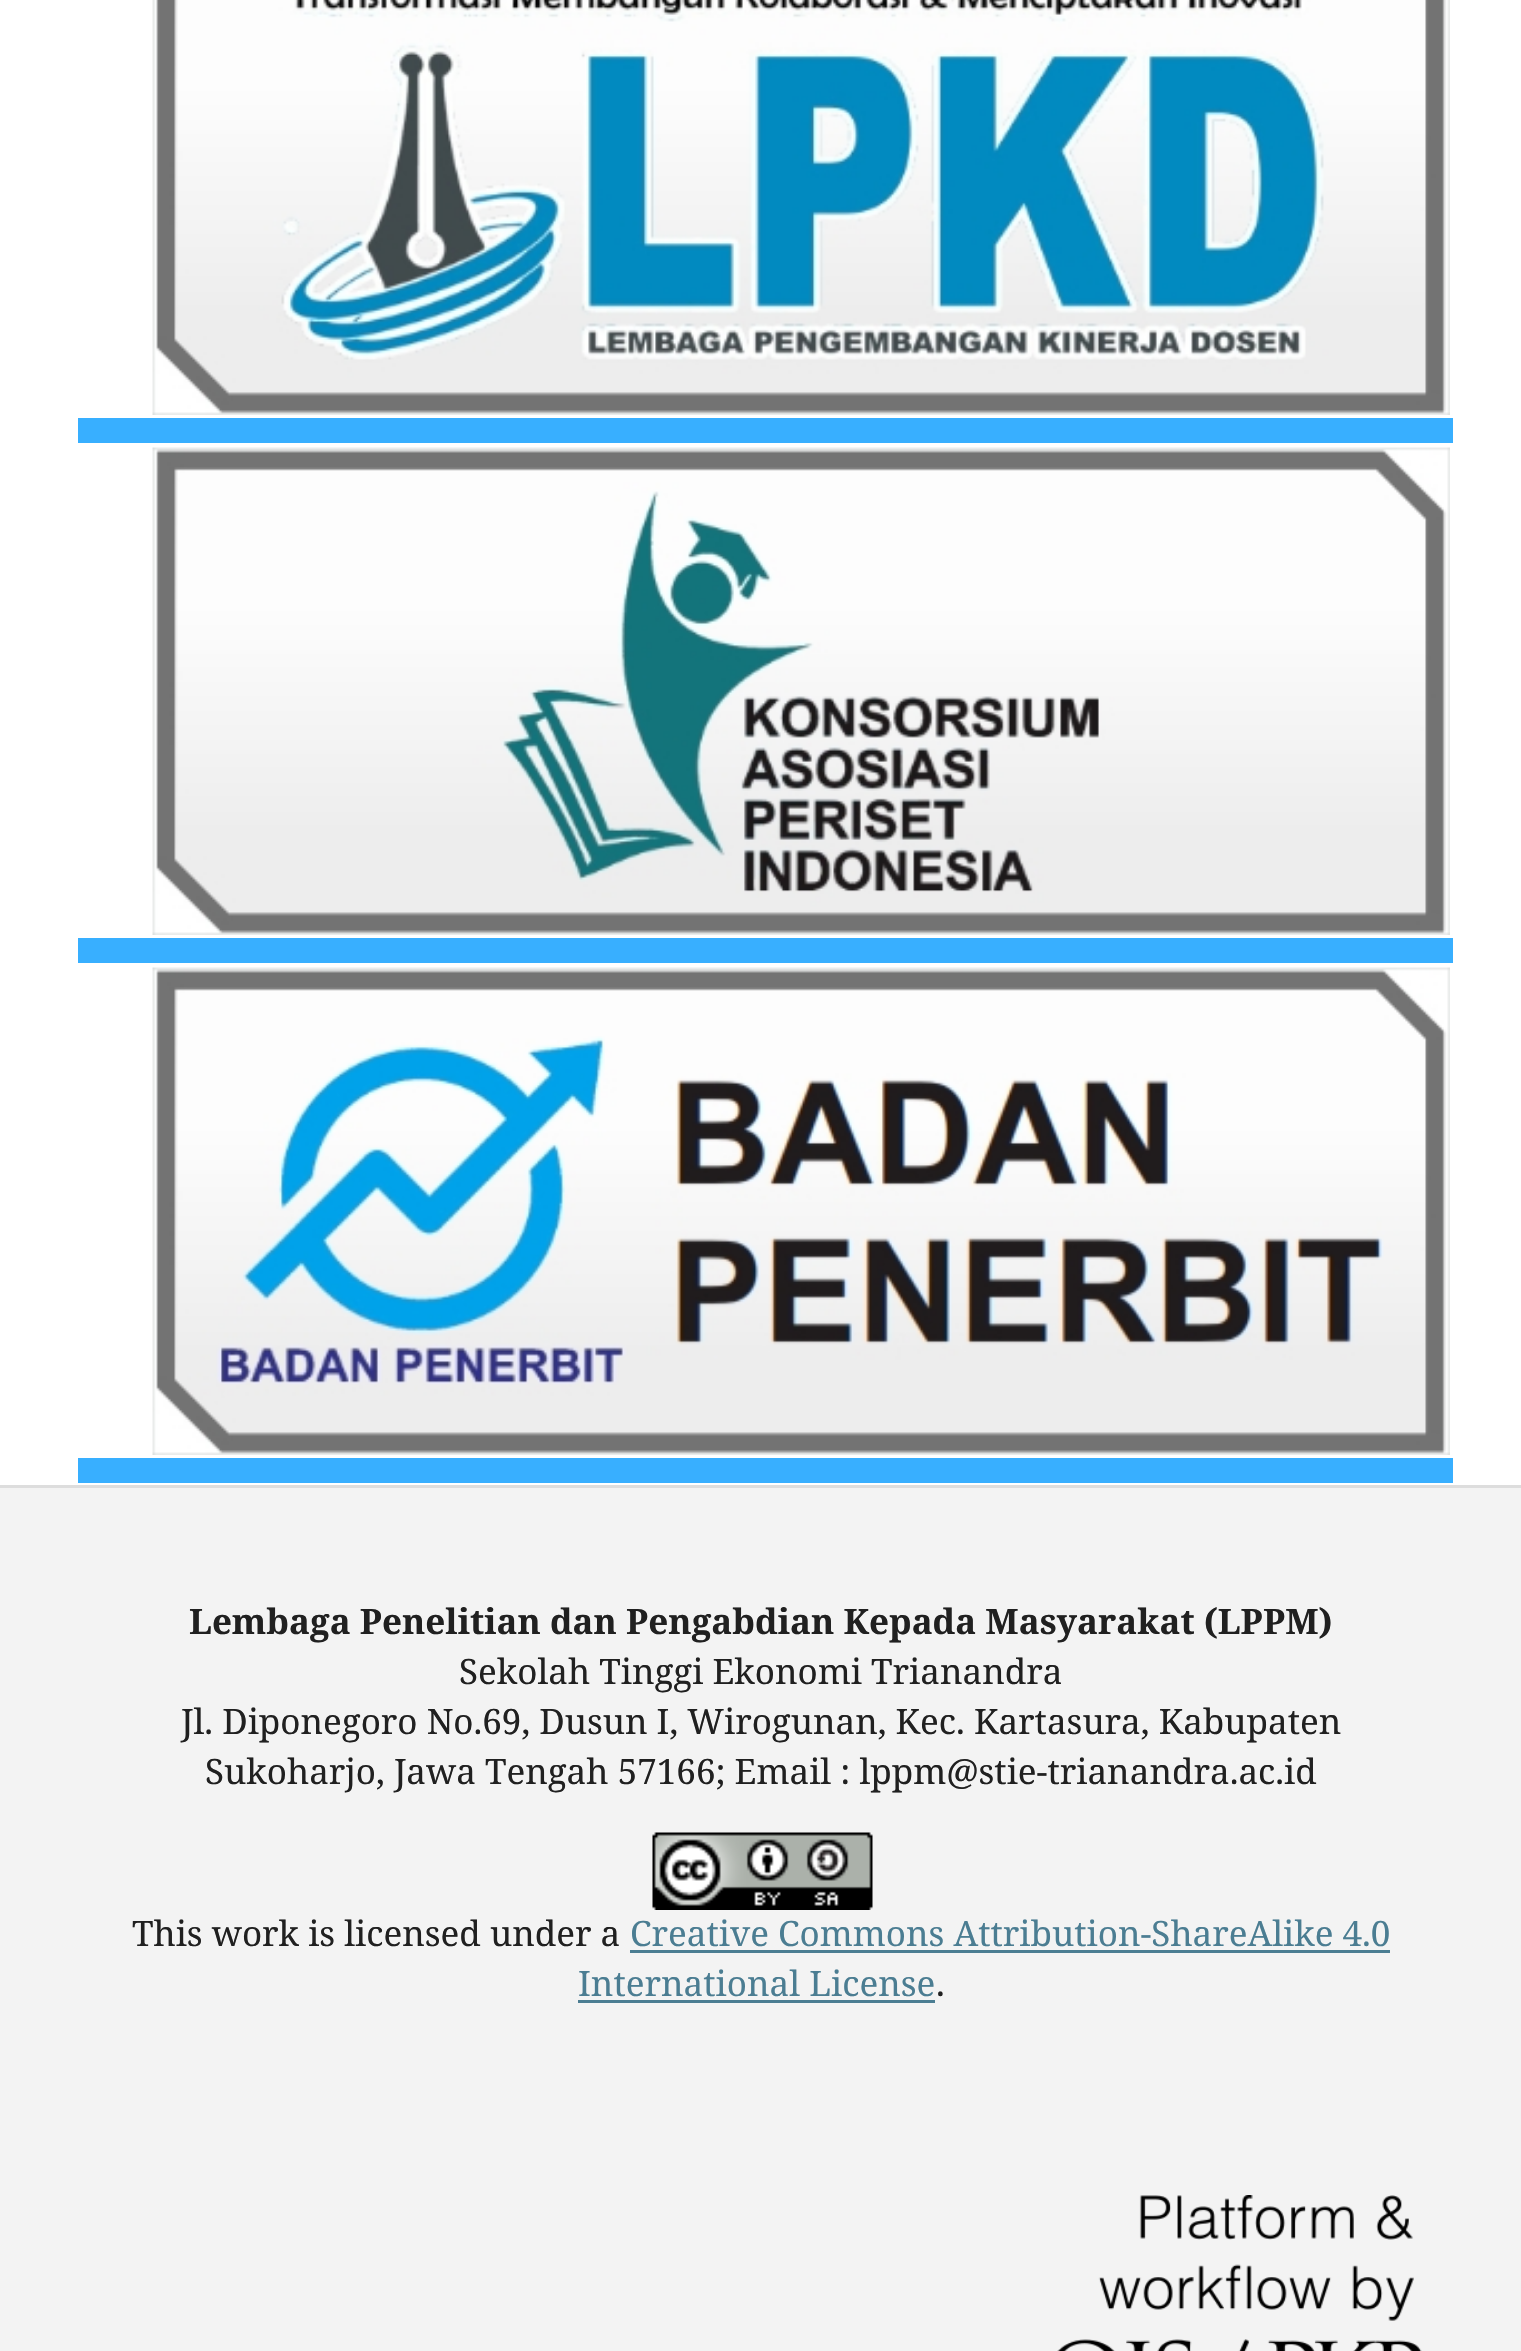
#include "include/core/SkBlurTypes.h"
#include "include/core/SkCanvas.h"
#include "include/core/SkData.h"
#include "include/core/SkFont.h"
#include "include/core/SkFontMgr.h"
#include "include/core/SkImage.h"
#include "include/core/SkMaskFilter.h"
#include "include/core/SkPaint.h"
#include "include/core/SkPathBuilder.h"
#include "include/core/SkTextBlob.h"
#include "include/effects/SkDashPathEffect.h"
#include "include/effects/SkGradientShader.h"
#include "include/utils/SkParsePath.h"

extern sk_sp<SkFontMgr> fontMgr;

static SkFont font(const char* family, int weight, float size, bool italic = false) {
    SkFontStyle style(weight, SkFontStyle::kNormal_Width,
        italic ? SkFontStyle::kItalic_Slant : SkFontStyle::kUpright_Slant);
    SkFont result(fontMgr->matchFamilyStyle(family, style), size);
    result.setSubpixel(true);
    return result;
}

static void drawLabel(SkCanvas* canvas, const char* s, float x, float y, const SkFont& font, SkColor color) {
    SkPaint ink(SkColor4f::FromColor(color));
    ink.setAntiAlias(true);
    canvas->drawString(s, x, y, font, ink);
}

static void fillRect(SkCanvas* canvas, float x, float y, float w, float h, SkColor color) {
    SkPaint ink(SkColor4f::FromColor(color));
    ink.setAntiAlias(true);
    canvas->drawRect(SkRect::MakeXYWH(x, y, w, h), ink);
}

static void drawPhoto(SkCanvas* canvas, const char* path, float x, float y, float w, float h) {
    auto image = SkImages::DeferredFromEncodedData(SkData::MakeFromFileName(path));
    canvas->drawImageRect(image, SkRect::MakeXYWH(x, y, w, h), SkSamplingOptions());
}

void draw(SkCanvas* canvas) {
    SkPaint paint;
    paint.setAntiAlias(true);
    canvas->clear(0xFFFFFFFF);
    fillRect(canvas, 78, 418, 1375, 25, 0xFF38AFFF);
    drawPhoto(canvas, "assets/img1.png", 152, 0, 1298, 415);
    fillRect(canvas, 78, 938, 1375, 25, 0xFF38AFFF);
    drawPhoto(canvas, "assets/img2.png", 152, 447, 1298, 488);
    fillRect(canvas, 78, 1458, 1375, 25, 0xFF38AFFF);
    drawPhoto(canvas, "assets/img3.png", 152, 967, 1298, 488);
    fillRect(canvas, 0, 1488, 1521, 863, 0xFFF3F3F3);
    fillRect(canvas, 0, 1485, 1521, 3, 0xFFDDDDDD);
    SkFont font1 = font("Noto Serif", 700, 35);
    drawLabel(canvas, "Lembaga Penelitian dan Pengabdian Kepada Masyarakat (LPPM)", 189, 1634, font1, 0xFF202020);
    SkFont font2 = font("Noto Serif", 400, 35);
    drawLabel(canvas, "Sekolah Tinggi Ekonomi Trianandra", 459, 1684, font2, 0xFF202020);
    drawLabel(canvas, "Jl. Diponegoro No.69, Dusun I, Wirogunan, Kec. Kartasura, Kabupaten", 181, 1734, font2, 0xFF202020);
    drawLabel(canvas, "Sukoharjo, Jawa Tengah 57166; Email : lppm@stie-trianandra.ac.id", 205, 1784, font2, 0xFF202020);
    drawPhoto(canvas, "assets/img4.png", 652, 1832, 221, 78);
    drawLabel(canvas, "This work is licensed under a", 132, 1946, font2, 0xFF202020);
    drawLabel(canvas, "Creative Commons Attribution-ShareAlike 4.0", 630, 1946, font2, 0xFF4B7D92);
    fillRect(canvas, 630, 1950, 760, 3, 0xFF4B7D92);
    drawLabel(canvas, "International License", 578, 1996, font2, 0xFF4B7D92);
    fillRect(canvas, 578, 2000, 357, 3, 0xFF4B7D92);
    drawLabel(canvas, ".", 936, 1996, font2, 0xFF202020);
    drawPhoto(canvas, "assets/img5.png", 1057, 2195, 365, 156);
}
